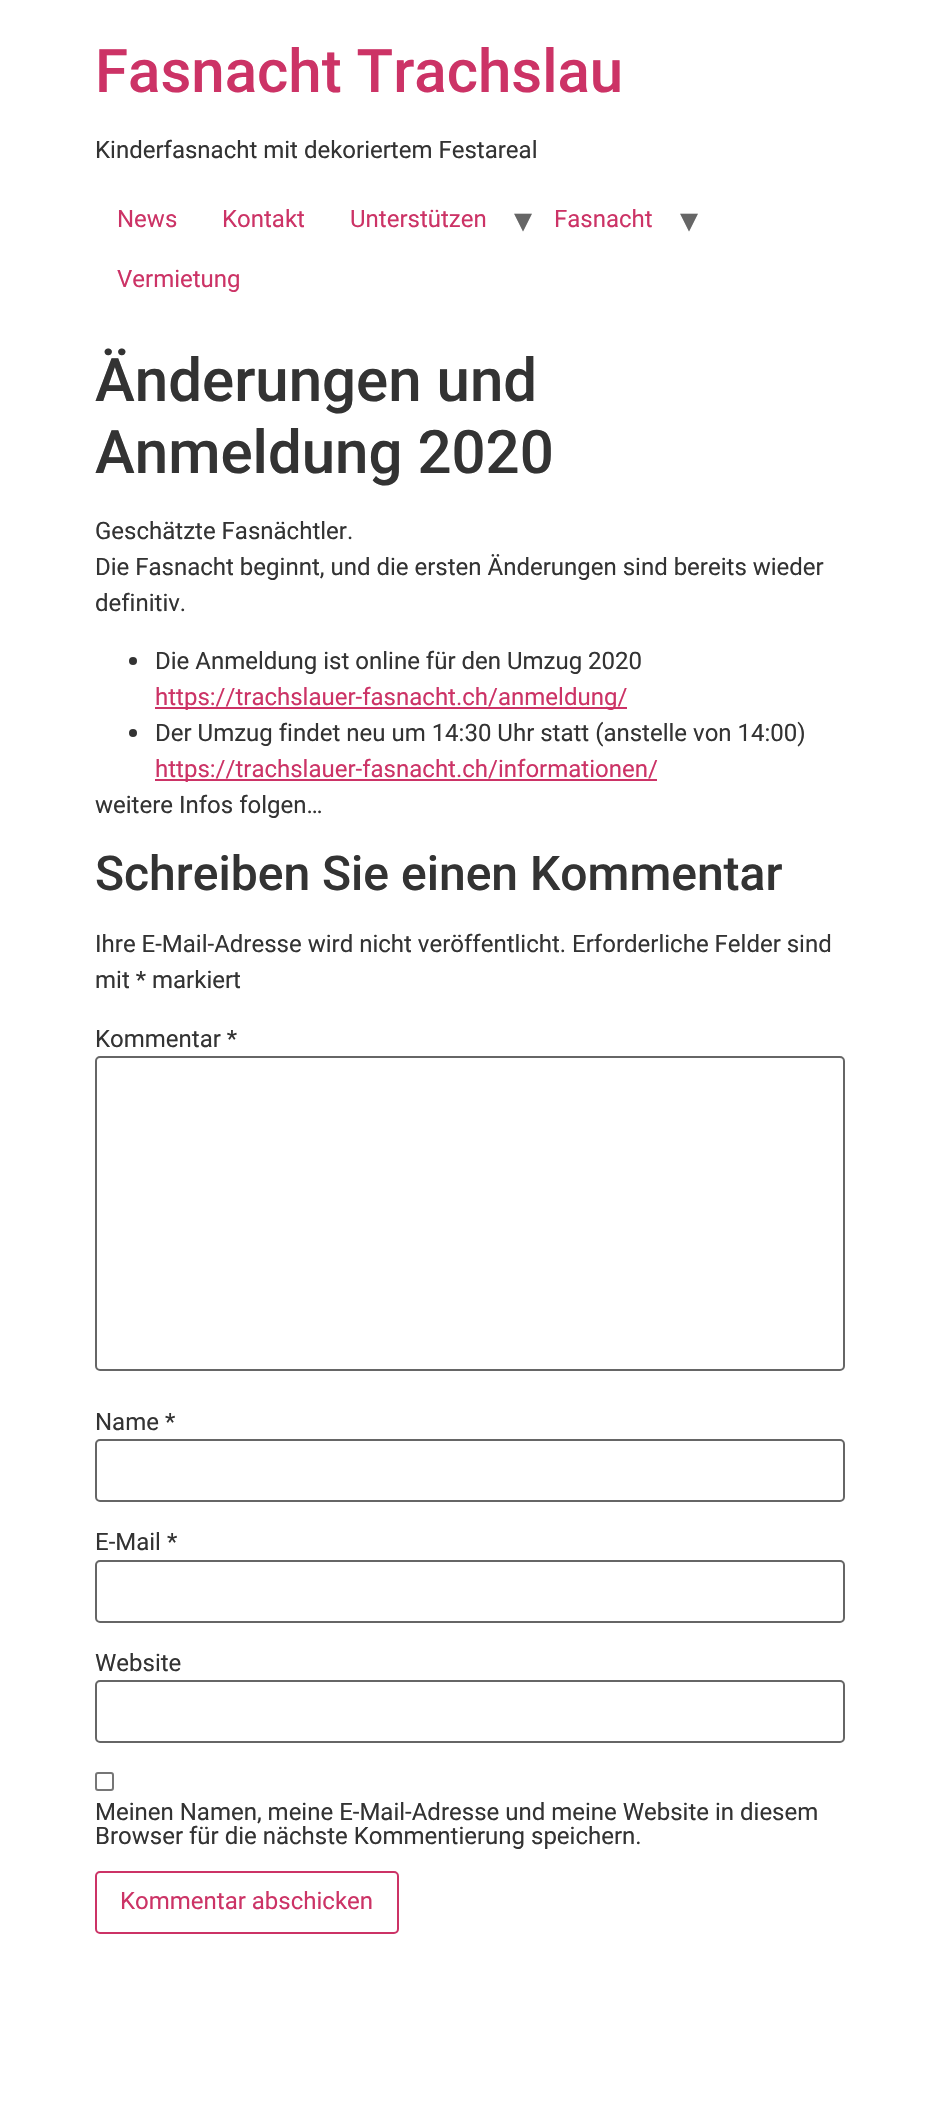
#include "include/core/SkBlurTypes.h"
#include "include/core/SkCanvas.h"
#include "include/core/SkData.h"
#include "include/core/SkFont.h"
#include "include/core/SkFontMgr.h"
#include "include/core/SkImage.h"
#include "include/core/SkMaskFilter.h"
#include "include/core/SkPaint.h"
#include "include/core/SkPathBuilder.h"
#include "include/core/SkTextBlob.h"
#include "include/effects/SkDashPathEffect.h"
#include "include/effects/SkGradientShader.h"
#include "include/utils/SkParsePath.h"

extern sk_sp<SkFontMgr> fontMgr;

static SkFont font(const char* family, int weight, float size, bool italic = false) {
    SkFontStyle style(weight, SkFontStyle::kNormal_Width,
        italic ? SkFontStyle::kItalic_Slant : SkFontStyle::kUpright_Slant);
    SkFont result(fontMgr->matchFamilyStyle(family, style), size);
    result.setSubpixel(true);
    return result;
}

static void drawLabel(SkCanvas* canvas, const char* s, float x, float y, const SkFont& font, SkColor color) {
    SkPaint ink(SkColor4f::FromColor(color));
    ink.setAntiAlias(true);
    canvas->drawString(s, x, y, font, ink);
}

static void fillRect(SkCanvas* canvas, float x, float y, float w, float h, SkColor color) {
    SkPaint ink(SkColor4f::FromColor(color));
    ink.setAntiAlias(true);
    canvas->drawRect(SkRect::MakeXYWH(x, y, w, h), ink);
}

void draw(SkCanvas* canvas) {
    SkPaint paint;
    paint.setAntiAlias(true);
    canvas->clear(0xFFFFFFFF);
    SkFont font1 = font("Roboto", 500, 60);
    drawLabel(canvas, "Fasnacht Trachslau", 95, 92, font1, 0xFFCC3366);
    SkFont font2 = font("Roboto", 400, 24);
    drawLabel(canvas, "Kinderfasnacht mit dekoriertem Festareal", 95, 158, font2, 0xFF333333);
    drawLabel(canvas, "News", 117, 227, font2, 0xFFCC3366);
    drawLabel(canvas, "Kontakt", 222, 227, font2, 0xFFCC3366);
    drawLabel(canvas, "Unterstützen", 350, 227, font2, 0xFFCC3366);
    SkFont font3 = font("DejaVu Sans", 400, 36);
    drawLabel(canvas, "▾", 514, 232, font3, 0xFF666666);
    drawLabel(canvas, "Fasnacht", 554, 227, font2, 0xFFCC3366);
    drawLabel(canvas, "▾", 680, 232, font3, 0xFF666666);
    drawLabel(canvas, "Vermietung", 117, 287, font2, 0xFFCC3366);
    drawLabel(canvas, "Änderungen und", 95, 401, font1, 0xFF333333);
    drawLabel(canvas, "Anmeldung 2020", 95, 473, font1, 0xFF333333);
    drawLabel(canvas, "Geschätzte Fasnächtler.", 95, 539, font2, 0xFF333333);
    drawLabel(canvas, "Die Fasnacht beginnt, und die ersten Änderungen sind bereits wieder", 95, 575, font2, 0xFF333333);
    drawLabel(canvas, "definitiv.", 95, 611, font2, 0xFF333333);
    paint.setColor(0xFF333333);
    canvas->drawCircle(133, 661, 4, paint);
    drawLabel(canvas, "Die Anmeldung ist online für den Umzug 2020", 155, 669, font2, 0xFF333333);
    fillRect(canvas, 155, 707, 472, 2, 0xFFCC3366);
    drawLabel(canvas, "https://trachslauer-fasnacht.ch/anmeldung/", 155, 705, font2, 0xFFCC3366);
    canvas->drawCircle(133, 733, 4, paint);
    drawLabel(canvas, "Der Umzug findet neu um 14:30 Uhr statt (anstelle von 14:00)", 155, 741, font2, 0xFF333333);
    fillRect(canvas, 155, 779, 502, 2, 0xFFCC3366);
    drawLabel(canvas, "https://trachslauer-fasnacht.ch/informationen/", 155, 777, font2, 0xFFCC3366);
    drawLabel(canvas, "weitere Infos folgen…", 95, 813, font2, 0xFF333333);
    SkFont font4 = font("Roboto", 500, 48);
    drawLabel(canvas, "Schreiben Sie einen Kommentar", 95, 890, font4, 0xFF333333);
    drawLabel(canvas, "Ihre E-Mail-Adresse wird nicht veröffentlicht. Erforderliche Felder sind", 95, 952, font2, 0xFF333333);
    drawLabel(canvas, "mit * markiert", 95, 988, font2, 0xFF333333);
    drawLabel(canvas, "Kommentar *", 95, 1047, font2, 0xFF333333);
    paint.setStroke(true);
    paint.setStrokeWidth(2);
    paint.setColor(0xFF666666);
    canvas->drawRoundRect(SkRect::MakeXYWH(96, 1057, 748, 313), 4, 4, paint);
    drawLabel(canvas, "Name *", 95, 1430, font2, 0xFF333333);
    canvas->drawRoundRect(SkRect::MakeXYWH(96, 1440, 748, 61), 4, 4, paint);
    drawLabel(canvas, "E-Mail *", 95, 1550, font2, 0xFF333333);
    canvas->drawRoundRect(SkRect::MakeXYWH(96, 1561, 748, 61), 4, 4, paint);
    drawLabel(canvas, "Website", 95, 1671, font2, 0xFF333333);
    canvas->drawRoundRect(SkRect::MakeXYWH(96, 1681, 748, 61), 4, 4, paint);
    paint.setColor(0xFF767676);
    canvas->drawRoundRect(SkRect::MakeXYWH(96, 1773, 17, 17), 2, 2, paint);
    drawLabel(canvas, "Meinen Namen, meine E-Mail-Adresse und meine Website in diesem", 95, 1820, font2, 0xFF333333);
    drawLabel(canvas, "Browser für die nächste Kommentierung speichern.", 95, 1844, font2, 0xFF333333);
    paint.setColor(0xFFCC3366);
    canvas->drawRoundRect(SkRect::MakeXYWH(96, 1872, 302, 61), 4, 4, paint);
    drawLabel(canvas, "Kommentar abschicken", 120, 1909, font2, 0xFFCC3366);
}
